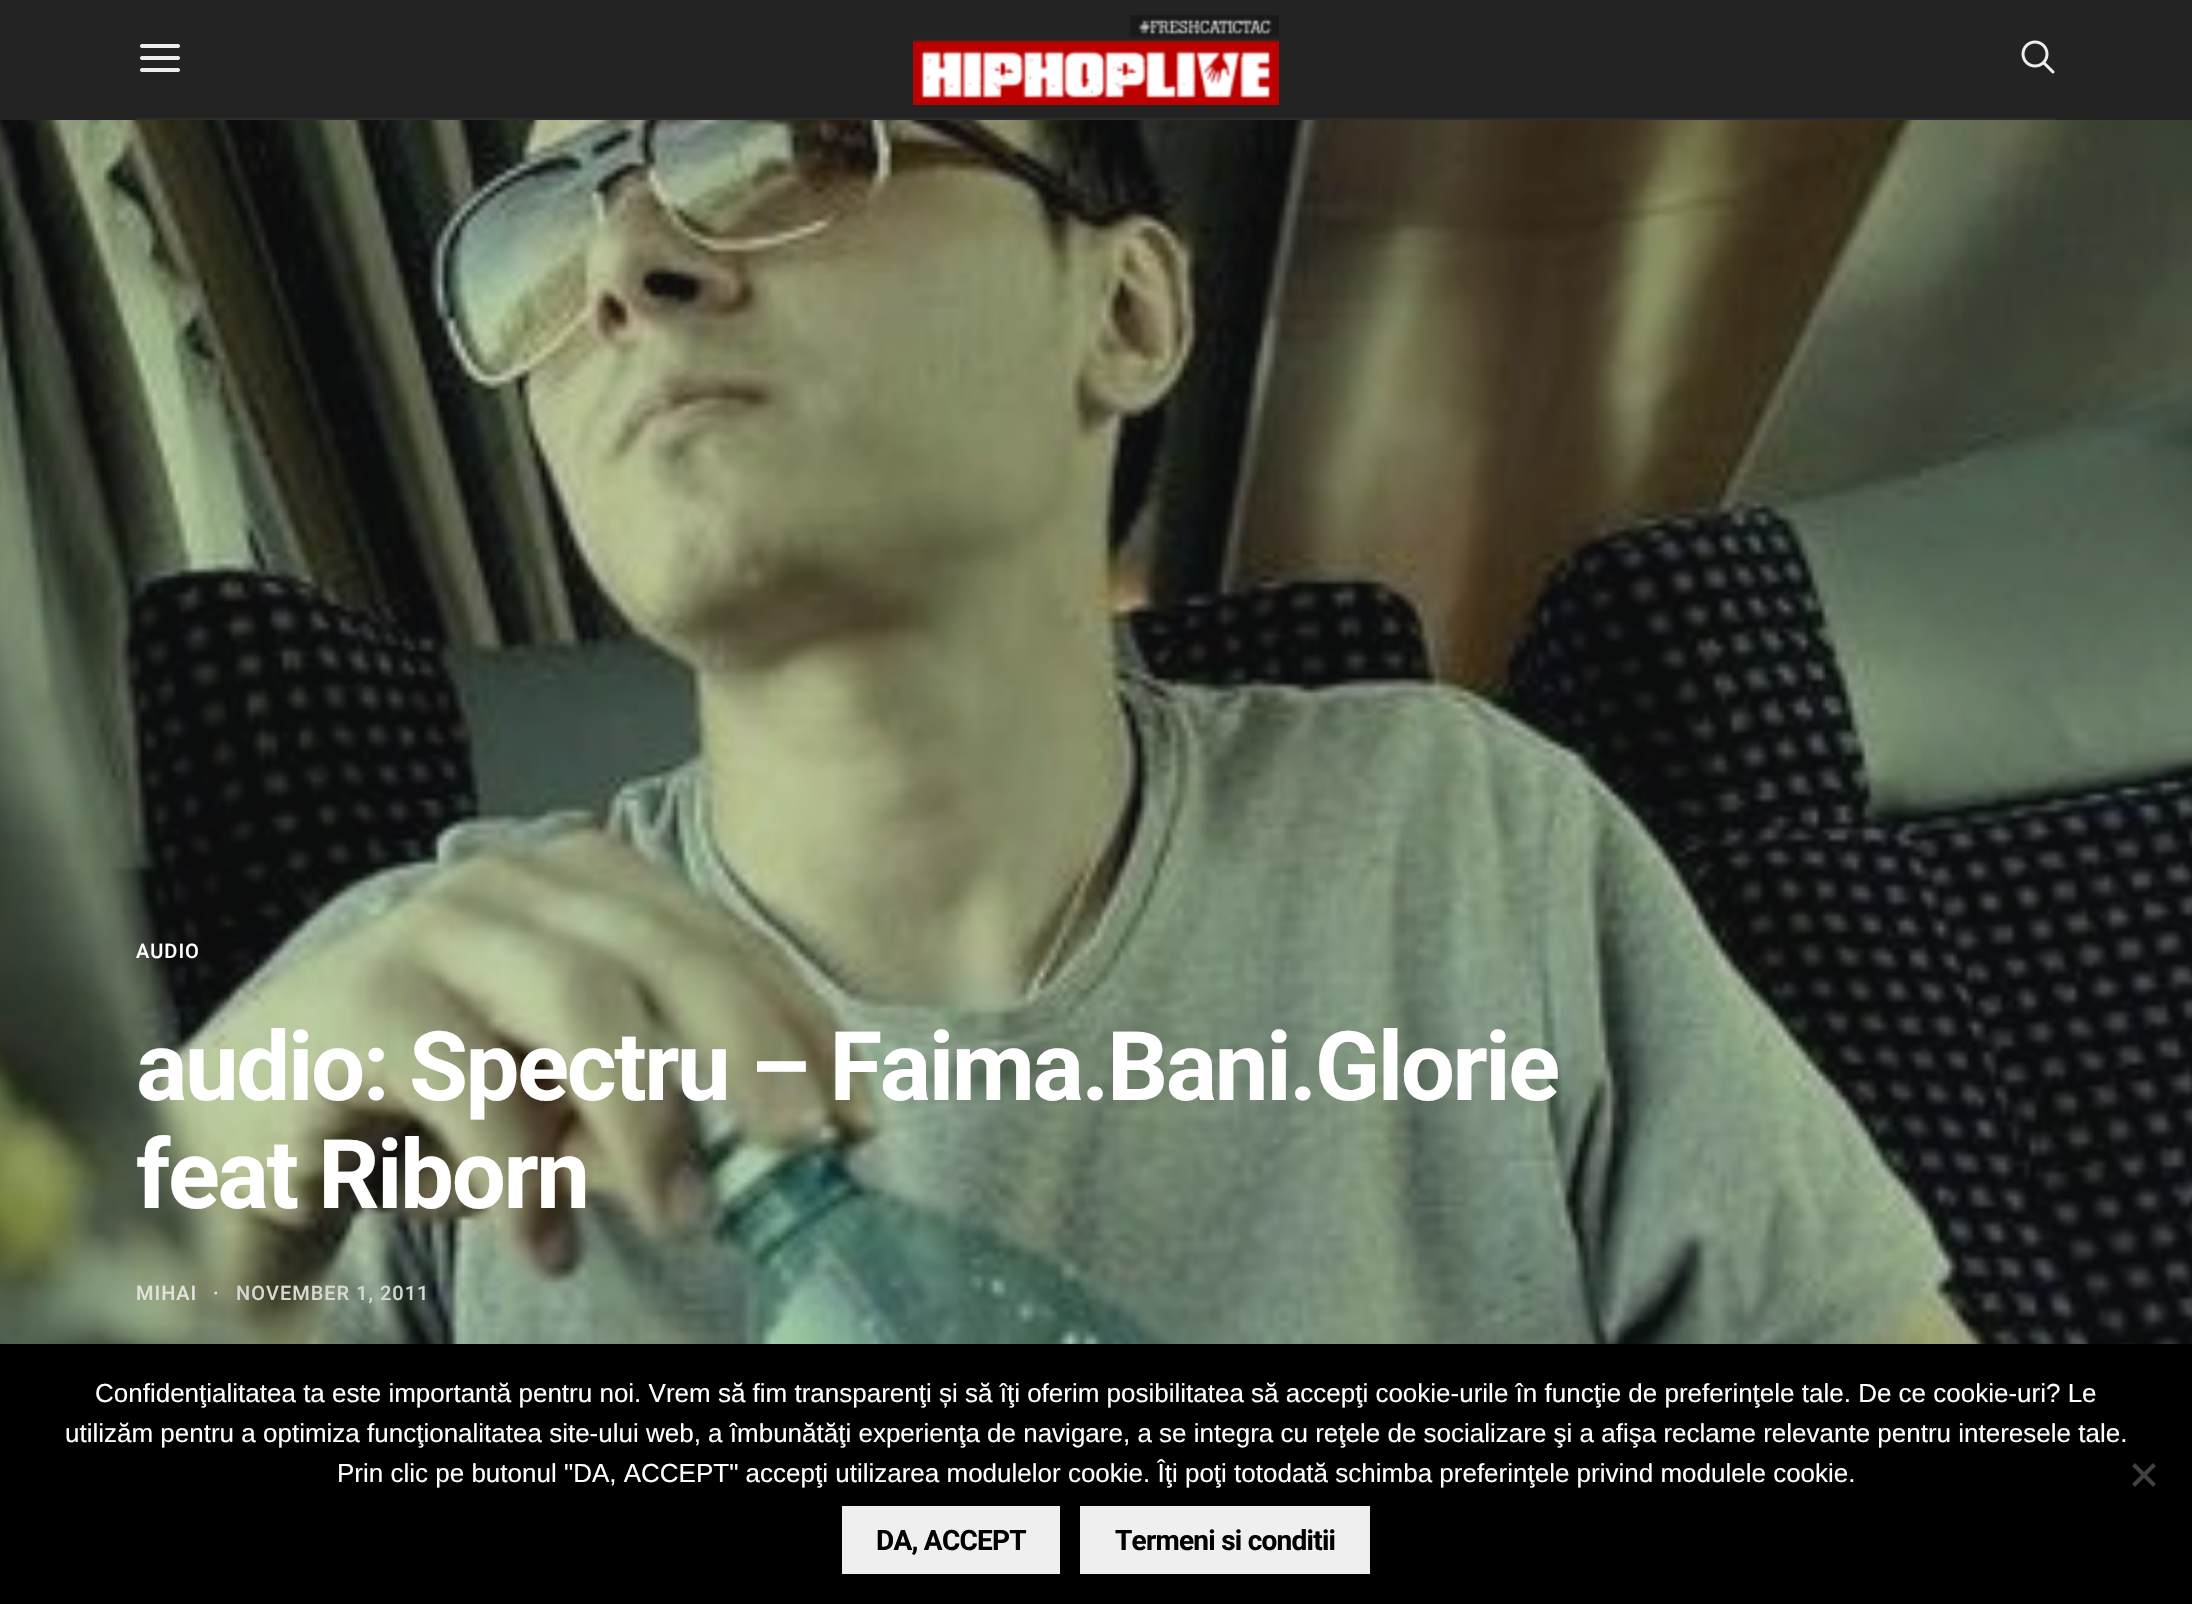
#include "include/core/SkBlurTypes.h"
#include "include/core/SkCanvas.h"
#include "include/core/SkData.h"
#include "include/core/SkFont.h"
#include "include/core/SkFontMgr.h"
#include "include/core/SkImage.h"
#include "include/core/SkMaskFilter.h"
#include "include/core/SkPaint.h"
#include "include/core/SkPathBuilder.h"
#include "include/core/SkTextBlob.h"
#include "include/effects/SkDashPathEffect.h"
#include "include/effects/SkGradientShader.h"
#include "include/utils/SkParsePath.h"

extern sk_sp<SkFontMgr> fontMgr;

static SkFont font(const char* family, int weight, float size, bool italic = false) {
    SkFontStyle style(weight, SkFontStyle::kNormal_Width,
        italic ? SkFontStyle::kItalic_Slant : SkFontStyle::kUpright_Slant);
    SkFont result(fontMgr->matchFamilyStyle(family, style), size);
    result.setSubpixel(true);
    return result;
}

static void drawLabel(SkCanvas* canvas, const char* s, float x, float y, const SkFont& font, SkColor color) {
    SkPaint ink(SkColor4f::FromColor(color));
    ink.setAntiAlias(true);
    canvas->drawString(s, x, y, font, ink);
}

static void drawTracked(SkCanvas* canvas, const char* s, float x, float y, const SkFont& font, const SkPaint& ink, float letter, float word) {
    std::vector<SkGlyphID> glyphs(font.countText(s, strlen(s), SkTextEncoding::kUTF8));
    std::vector<float> xs(glyphs.size());
    font.textToGlyphs(s, strlen(s), SkTextEncoding::kUTF8, glyphs);
    font.getXPos(glyphs, xs, x);
    float extra = 0;
    for (size_t i = 0; i < glyphs.size(); i++) {
        xs[i] += extra;
        extra += letter + word * (glyphs[i] == font.unicharToGlyph(' '));
    }
    canvas->drawTextBlob(SkTextBlob::MakeFromPosHGlyphs(glyphs, xs, y, font), 0, 0, ink);
}

static void fillRect(SkCanvas* canvas, float x, float y, float w, float h, SkColor color) {
    SkPaint ink(SkColor4f::FromColor(color));
    ink.setAntiAlias(true);
    canvas->drawRect(SkRect::MakeXYWH(x, y, w, h), ink);
}

static void drawPhoto(SkCanvas* canvas, const char* path, float x, float y, float w, float h) {
    auto image = SkImages::DeferredFromEncodedData(SkData::MakeFromFileName(path));
    canvas->drawImageRect(image, SkRect::MakeXYWH(x, y, w, h), SkSamplingOptions());
}

static SkPath parsePath(const char* data, bool evenOdd = false) {
    SkPath result = *SkParsePath::FromSVGString(data);
    if (evenOdd) result.setFillType(SkPathFillType::kEvenOdd);
    return result;
}

void draw(SkCanvas* canvas) {
    SkPaint paint;
    paint.setAntiAlias(true);
    canvas->clear(0xFFFFFFFF);
    fillRect(canvas, 0, 0, 2192, 120, 0xFF232323);
    fillRect(canvas, 136, 118, 1920, 2, 0xFF2B2B2B);
    drawPhoto(canvas, "assets/img1.png", 140, 44, 40, 28);
    drawPhoto(canvas, "assets/img2.png", 913, 15, 366, 90);
    drawPhoto(canvas, "assets/img3.png", 2021, 40, 34, 34);
    drawPhoto(canvas, "assets/img4.png", 0, 120, 2192, 1224);
    SkFont font1 = font("Roboto", 500, 20);
    paint.setColor(0xFFFFFFFF);
    drawTracked(canvas, "AUDIO", 136, 958, font1, paint, 1, 0);
    SkFont font2 = font("Roboto", 700, 96);
    drawTracked(canvas, "audio: Spectru – Faima.Bani.Glorie", 136, 1100, font2, paint, -2.4f, 0);
    drawTracked(canvas, "feat Riborn", 136, 1208, font2, paint, -2.4f, 0);
    paint.setColor(0xFFE0E2DB);
    drawTracked(canvas, "MIHAI", 136, 1300, font1, paint, 1, 0);
    drawTracked(canvas, "·", 213, 1300, font1, paint, 1, 0);
    paint.setColor(0xFFD6D8D3);
    drawTracked(canvas, "NOVEMBER 1, 2011", 236, 1300, font1, paint, 1, 0);
    fillRect(canvas, 0, 1344, 2192, 260, 0xFF000000);
    SkFont font3 = font("Liberation Sans", 400, 26);
    drawLabel(canvas, "Confidenţialitatea ta este importantă pentru noi. Vrem să fim transparenţi și să îţi oferim posibilitatea să accepţi cookie-urile în funcţie de preferinţele tale. De ce cookie-uri? Le", 95, 1402, font3, 0xFFFFFFFF);
    drawLabel(canvas, "utilizăm pentru a optimiza funcţionalitatea site-ului web, a îmbunătăţi experienţa de navigare, a se integra cu reţele de socializare şi a afişa reclame relevante pentru interesele tale.", 65, 1442, font3, 0xFFFFFFFF);
    drawLabel(canvas, "Prin clic pe butonul \"DA, ACCEPT\" accepţi utilizarea modulelor cookie. Îţi poţi totodată schimba preferinţele privind modulele cookie.", 337, 1482, font3, 0xFFFFFFFF);
    paint.setColor(0xFF404040);
    canvas->drawPath(parsePath("M2153 1463L2156 1466L2135 1487L2132 1484Z"), paint);
    canvas->drawPath(parsePath("M2132 1466L2135 1463L2156 1484L2153 1487Z"), paint);
    fillRect(canvas, 842, 1506, 218, 68, 0xFFEFEFEF);
    SkFont font4 = font("Roboto", 700, 28);
    paint.setColor(0xFF000000);
    drawTracked(canvas, "DA, ACCEPT", 876, 1550, font4, paint, -0.75f, 0);
    fillRect(canvas, 1080, 1506, 290, 68, 0xFFEFEFEF);
    drawTracked(canvas, "Termeni si conditii", 1115, 1550, font4, paint, -0.75f, 0);
}
